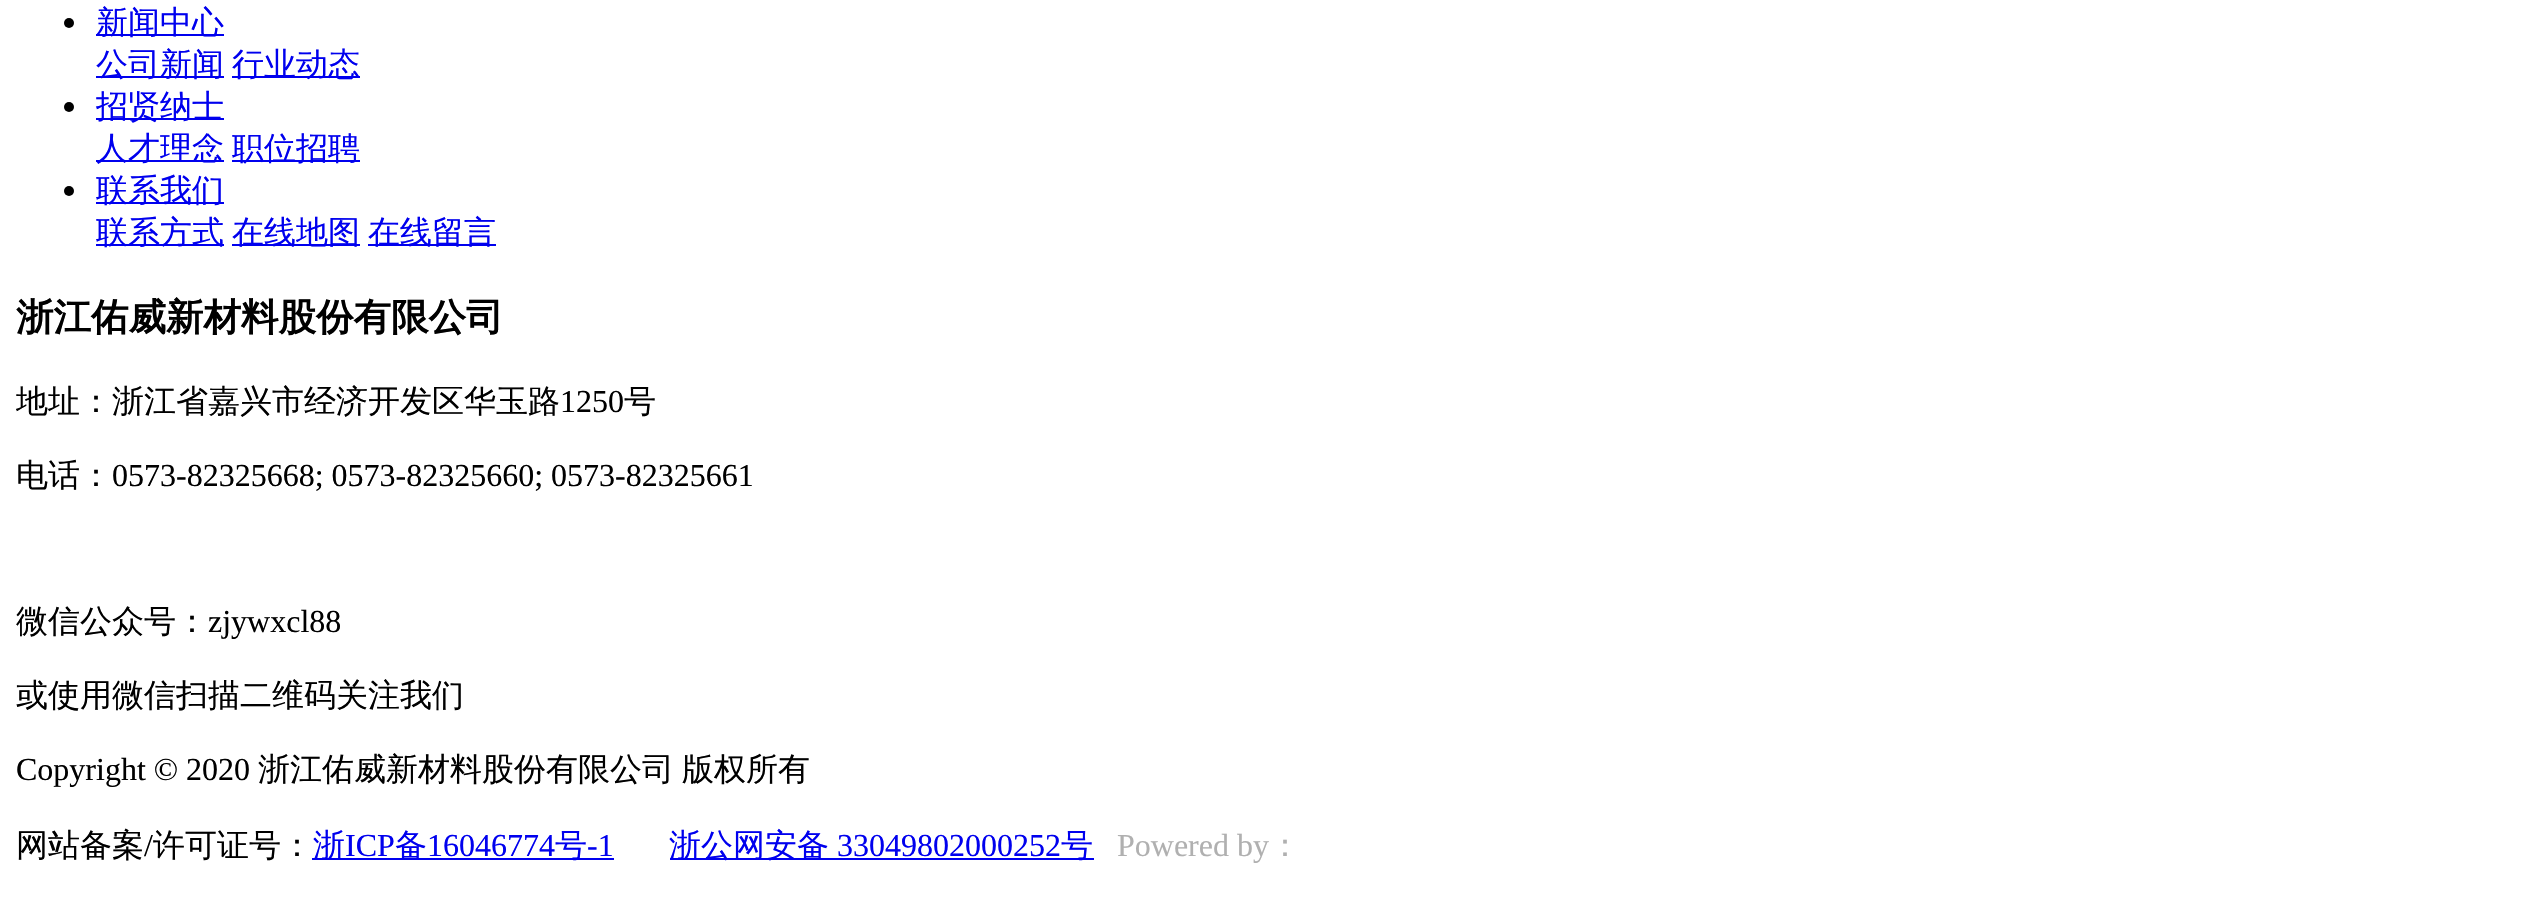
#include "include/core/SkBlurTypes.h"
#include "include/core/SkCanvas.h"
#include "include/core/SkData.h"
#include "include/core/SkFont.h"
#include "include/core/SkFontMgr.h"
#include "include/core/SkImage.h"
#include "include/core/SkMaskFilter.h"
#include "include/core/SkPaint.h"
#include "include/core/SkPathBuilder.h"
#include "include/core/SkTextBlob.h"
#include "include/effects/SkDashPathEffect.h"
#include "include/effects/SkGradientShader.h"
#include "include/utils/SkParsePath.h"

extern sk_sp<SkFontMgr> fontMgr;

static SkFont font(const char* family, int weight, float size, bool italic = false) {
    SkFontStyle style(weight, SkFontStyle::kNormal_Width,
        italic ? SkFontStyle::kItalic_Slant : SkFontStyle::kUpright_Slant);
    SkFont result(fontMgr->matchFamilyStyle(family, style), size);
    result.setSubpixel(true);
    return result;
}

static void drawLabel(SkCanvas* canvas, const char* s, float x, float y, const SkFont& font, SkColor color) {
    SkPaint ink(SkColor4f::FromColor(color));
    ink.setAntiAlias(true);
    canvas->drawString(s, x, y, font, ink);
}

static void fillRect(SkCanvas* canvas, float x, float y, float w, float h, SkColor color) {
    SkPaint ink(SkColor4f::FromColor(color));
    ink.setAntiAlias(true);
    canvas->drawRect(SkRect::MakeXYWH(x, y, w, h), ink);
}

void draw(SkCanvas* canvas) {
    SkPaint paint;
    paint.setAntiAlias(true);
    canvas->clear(0xFFFFFFFF);
    paint.setColor(0xFF000000);
    canvas->drawCircle(69, 23, 5, paint);
    fillRect(canvas, 96, 34, 128, 2, 0xFF0000EE);
    SkFont font1 = font("WenQuanYi Zen Hei", 500, 32);
    drawLabel(canvas, "新闻中心", 96, 33, font1, 0xFF0000EE);
    fillRect(canvas, 96, 76, 128, 2, 0xFF0000EE);
    drawLabel(canvas, "公司新闻", 96, 75, font1, 0xFF0000EE);
    fillRect(canvas, 232, 76, 128, 2, 0xFF0000EE);
    drawLabel(canvas, "行业动态", 232, 75, font1, 0xFF0000EE);
    canvas->drawCircle(69, 107, 5, paint);
    fillRect(canvas, 96, 118, 128, 2, 0xFF0000EE);
    drawLabel(canvas, "招贤纳士", 96, 117, font1, 0xFF0000EE);
    fillRect(canvas, 96, 160, 128, 2, 0xFF0000EE);
    drawLabel(canvas, "人才理念", 96, 159, font1, 0xFF0000EE);
    fillRect(canvas, 232, 160, 128, 2, 0xFF0000EE);
    drawLabel(canvas, "职位招聘", 232, 159, font1, 0xFF0000EE);
    canvas->drawCircle(69, 191, 5, paint);
    fillRect(canvas, 96, 202, 128, 2, 0xFF0000EE);
    drawLabel(canvas, "联系我们", 96, 201, font1, 0xFF0000EE);
    fillRect(canvas, 96, 244, 128, 2, 0xFF0000EE);
    drawLabel(canvas, "联系方式", 96, 243, font1, 0xFF0000EE);
    fillRect(canvas, 232, 244, 128, 2, 0xFF0000EE);
    drawLabel(canvas, "在线地图", 232, 243, font1, 0xFF0000EE);
    fillRect(canvas, 368, 244, 128, 2, 0xFF0000EE);
    drawLabel(canvas, "在线留言", 368, 243, font1, 0xFF0000EE);
    SkFont font2 = font("WenQuanYi Zen Hei", 700, 37.5f);
    drawLabel(canvas, "浙江佑威新材料股份有限公司", 16, 330, font2, 0xFF000000);
    drawLabel(canvas, "地址：浙江省嘉兴市经济开发区华玉路", 16, 412, font1, 0xFF000000);
    SkFont font3 = font("Liberation Serif", 400, 32);
    drawLabel(canvas, "1250", 560, 412, font3, 0xFF000000);
    drawLabel(canvas, "号", 624, 412, font1, 0xFF000000);
    drawLabel(canvas, "电话：", 16, 486, font1, 0xFF000000);
    drawLabel(canvas, "0573-82325668; 0573-82325660; 0573-82325661", 112, 486, font3, 0xFF000000);
    drawLabel(canvas, "微信公众号：", 16, 632, font1, 0xFF000000);
    drawLabel(canvas, "zjywxcl88", 208, 632, font3, 0xFF000000);
    drawLabel(canvas, "或使用微信扫描二维码关注我们", 16, 706, font1, 0xFF000000);
    drawLabel(canvas, "Copyright © 2020", 16, 780, font3, 0xFF000000);
    drawLabel(canvas, "浙江佑威新材料股份有限公司", 258, 780, font1, 0xFF000000);
    drawLabel(canvas, "版权所有", 682, 780, font1, 0xFF000000);
    drawLabel(canvas, "网站备案", 16, 856, font1, 0xFF000000);
    drawLabel(canvas, "/", 144, 856, font3, 0xFF000000);
    drawLabel(canvas, "许可证号：", 153, 856, font1, 0xFF000000);
    fillRect(canvas, 312, 858, 302, 2, 0xFF0000EE);
    drawLabel(canvas, "浙", 313, 856, font1, 0xFF0000EE);
    drawLabel(canvas, "ICP", 345, 856, font3, 0xFF0000EE);
    drawLabel(canvas, "备", 395, 856, font1, 0xFF0000EE);
    drawLabel(canvas, "16046774", 427, 856, font3, 0xFF0000EE);
    drawLabel(canvas, "号", 555, 856, font1, 0xFF0000EE);
    drawLabel(canvas, "-1", 587, 856, font3, 0xFF0000EE);
    fillRect(canvas, 670, 858, 424, 2, 0xFF0000EE);
    drawLabel(canvas, "浙公网安备", 669, 856, font1, 0xFF0000EE);
    drawLabel(canvas, "33049802000252", 837, 856, font3, 0xFF0000EE);
    drawLabel(canvas, "号", 1061, 856, font1, 0xFF0000EE);
    drawLabel(canvas, "Powered by", 1117, 856, font3, 0xFFB0B0B0);
    drawLabel(canvas, "：", 1269, 856, font1, 0xFFB0B0B0);
}
